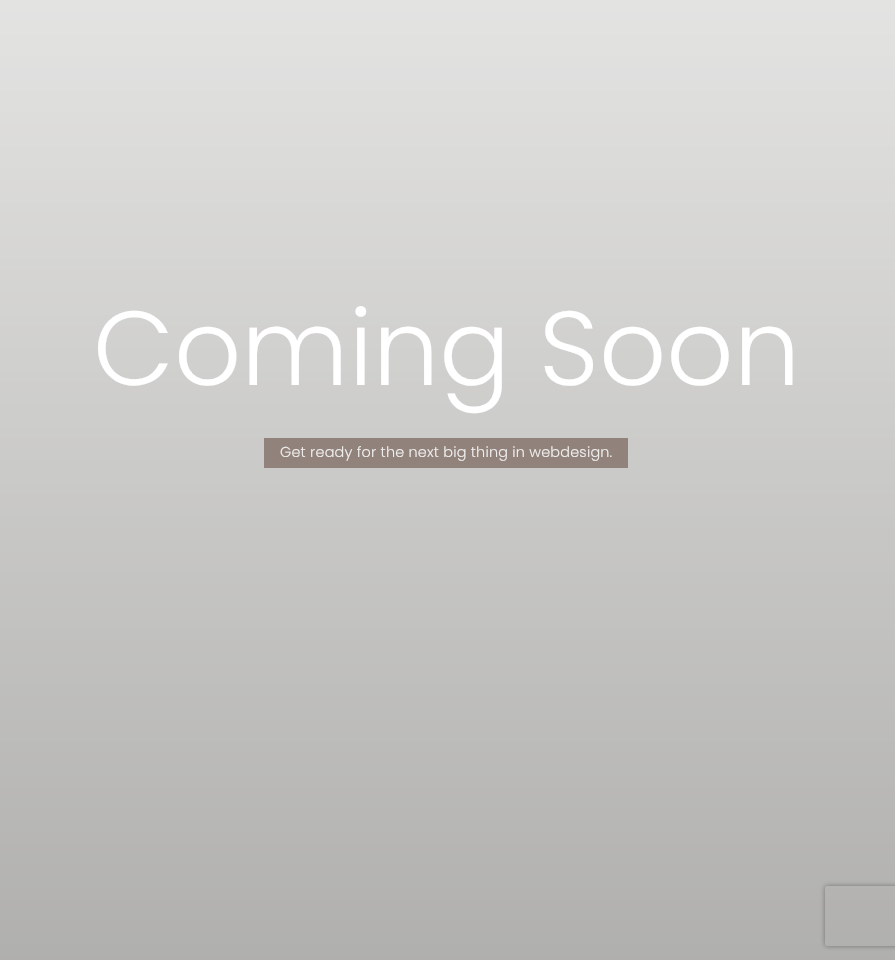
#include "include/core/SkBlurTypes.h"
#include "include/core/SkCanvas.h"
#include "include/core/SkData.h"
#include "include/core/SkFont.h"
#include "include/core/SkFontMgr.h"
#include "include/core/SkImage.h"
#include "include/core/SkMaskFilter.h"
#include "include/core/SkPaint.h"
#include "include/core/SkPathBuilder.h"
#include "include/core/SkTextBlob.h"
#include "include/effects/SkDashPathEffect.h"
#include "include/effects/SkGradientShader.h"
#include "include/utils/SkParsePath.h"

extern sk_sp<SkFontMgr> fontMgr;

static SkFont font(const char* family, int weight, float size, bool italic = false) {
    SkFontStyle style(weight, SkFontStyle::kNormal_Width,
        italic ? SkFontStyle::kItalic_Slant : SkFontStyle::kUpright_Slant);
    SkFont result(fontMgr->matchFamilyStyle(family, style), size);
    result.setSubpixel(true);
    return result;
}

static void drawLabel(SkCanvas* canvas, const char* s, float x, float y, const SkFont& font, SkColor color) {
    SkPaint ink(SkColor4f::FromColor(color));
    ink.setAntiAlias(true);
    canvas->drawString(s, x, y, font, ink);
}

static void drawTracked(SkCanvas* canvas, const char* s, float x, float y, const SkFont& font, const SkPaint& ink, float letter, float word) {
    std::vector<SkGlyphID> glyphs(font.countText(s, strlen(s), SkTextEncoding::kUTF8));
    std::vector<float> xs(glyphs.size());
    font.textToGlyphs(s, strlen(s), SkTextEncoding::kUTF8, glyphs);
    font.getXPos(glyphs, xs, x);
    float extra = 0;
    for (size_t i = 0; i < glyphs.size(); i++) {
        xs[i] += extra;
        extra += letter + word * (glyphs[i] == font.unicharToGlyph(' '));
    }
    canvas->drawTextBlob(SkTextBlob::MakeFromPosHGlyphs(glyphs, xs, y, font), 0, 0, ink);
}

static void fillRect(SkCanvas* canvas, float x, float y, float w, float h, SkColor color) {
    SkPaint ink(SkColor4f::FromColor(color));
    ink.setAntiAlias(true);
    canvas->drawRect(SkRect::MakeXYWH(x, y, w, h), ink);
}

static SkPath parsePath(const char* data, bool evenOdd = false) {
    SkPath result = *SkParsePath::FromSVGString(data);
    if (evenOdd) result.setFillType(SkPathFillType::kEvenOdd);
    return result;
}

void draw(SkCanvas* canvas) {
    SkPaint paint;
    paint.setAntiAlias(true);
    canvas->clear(0xFFFFFFFF);
    canvas->save();
    canvas->clipPath(parsePath("M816 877H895V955H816ZM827 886H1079C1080 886 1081 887 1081 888V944C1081 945 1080 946 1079 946H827C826 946 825 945 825 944V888C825 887 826 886 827 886Z", true), true);
    paint.setColor(0xFF808080);
    paint.setMaskFilter(SkMaskFilter::MakeBlur(kNormal_SkBlurStyle, 2.5f));
    canvas->drawRoundRect(SkRect::MakeXYWH(825, 886, 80, 60), 2, 2, paint);
    paint.setMaskFilter(nullptr);
    canvas->restore();
    {
        const SkColor colors[] = {0x00656460, 0x1A656460, 0xA6656460};
        const float stops[] = {0, 0.1f, 1};
        const SkPoint ends[] = {{448, -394}, {448, 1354}};
        paint.setShader(SkGradientShader::MakeLinear(ends, colors, stops, 3, SkTileMode::kClamp));
        paint.setAlpha(255);
    }
    canvas->drawRect(SkRect::MakeXYWH(0, 0, 895, 960), paint);
    SkFont font1 = font("Poppins", 300, 105);
    drawLabel(canvas, "Coming Soon", 93, 385, font1, 0xFFFFFFFF);
    fillRect(canvas, 264, 438, 364, 30, 0xFF91827B);
    SkFont font2 = font("Poppins", 300, 14.4f);
    paint.setShader(nullptr);
    paint.setColor(0xFFF0F0EF);
    drawTracked(canvas, "Get ready for the next big thing in webdesign.", 280, 457, font2, paint, 0.2f, 0);
}
